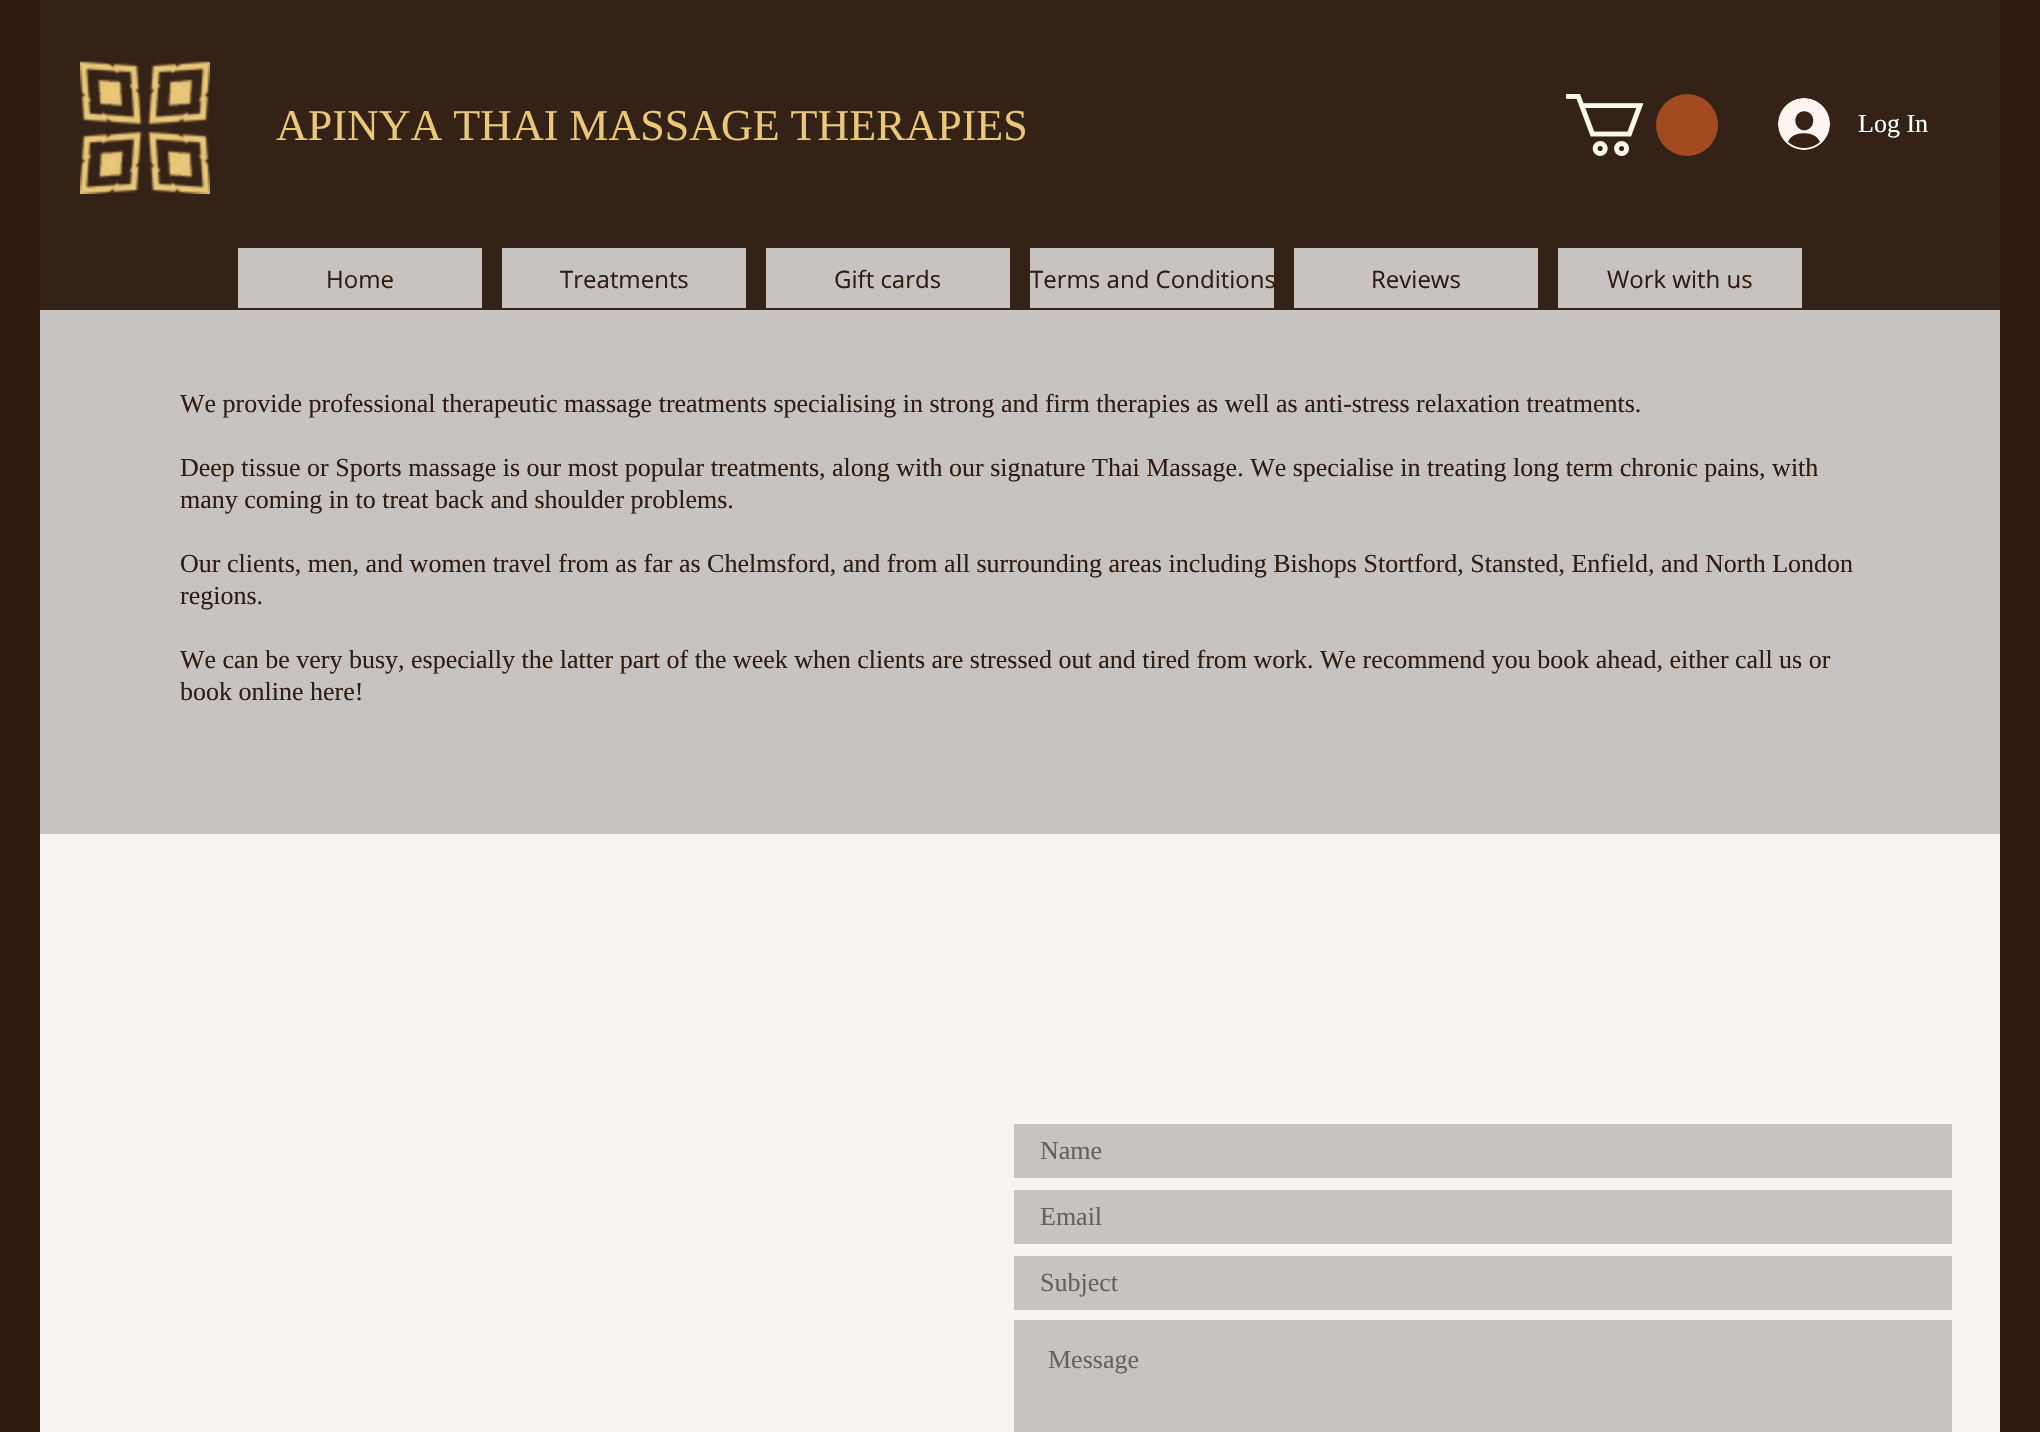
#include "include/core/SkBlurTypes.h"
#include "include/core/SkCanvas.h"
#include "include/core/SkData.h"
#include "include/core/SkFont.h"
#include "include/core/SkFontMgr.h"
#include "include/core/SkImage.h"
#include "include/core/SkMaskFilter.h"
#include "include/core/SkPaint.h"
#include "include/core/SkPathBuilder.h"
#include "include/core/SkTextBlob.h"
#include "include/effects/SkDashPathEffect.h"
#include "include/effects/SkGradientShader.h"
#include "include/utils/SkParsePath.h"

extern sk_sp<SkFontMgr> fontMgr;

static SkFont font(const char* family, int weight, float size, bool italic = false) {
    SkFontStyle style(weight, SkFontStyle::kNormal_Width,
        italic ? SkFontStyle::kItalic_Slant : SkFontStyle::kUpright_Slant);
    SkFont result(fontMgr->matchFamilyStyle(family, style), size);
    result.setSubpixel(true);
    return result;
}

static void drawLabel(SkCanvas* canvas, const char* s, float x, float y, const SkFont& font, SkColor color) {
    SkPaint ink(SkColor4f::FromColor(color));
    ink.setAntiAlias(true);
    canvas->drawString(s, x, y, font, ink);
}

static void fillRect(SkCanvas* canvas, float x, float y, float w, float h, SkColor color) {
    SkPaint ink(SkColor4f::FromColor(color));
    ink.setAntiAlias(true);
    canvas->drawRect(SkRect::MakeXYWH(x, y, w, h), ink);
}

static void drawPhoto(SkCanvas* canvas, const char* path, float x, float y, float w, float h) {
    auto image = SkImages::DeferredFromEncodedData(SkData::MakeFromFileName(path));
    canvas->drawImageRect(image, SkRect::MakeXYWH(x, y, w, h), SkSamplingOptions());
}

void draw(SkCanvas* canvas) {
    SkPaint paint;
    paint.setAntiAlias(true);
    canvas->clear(0xFF301D10);
    fillRect(canvas, 40, 0, 1960, 310, 0xFF342216);
    drawPhoto(canvas, "assets/img1.png", 80, 61, 130, 133);
    SkFont font1 = font("Liberation Serif", 400, 44);
    drawLabel(canvas, "APINYA THAI MASSAGE THERAPIES", 276, 140, font1, 0xFFEAC779);
    drawPhoto(canvas, "assets/img2.png", 1566, 94, 152, 62);
    drawPhoto(canvas, "assets/img3.png", 1778, 98, 52, 52);
    SkFont font2 = font("Liberation Serif", 400, 26);
    drawLabel(canvas, "Log In", 1858, 132, font2, 0xFFF5FFFE);
    fillRect(canvas, 238, 248, 244, 60, 0xFFC6C3C1);
    SkFont font3 = font("Open Sans", 400, 24);
    drawLabel(canvas, "Home", 326, 288, font3, 0xFF301D10);
    fillRect(canvas, 502, 248, 244, 60, 0xFFC6C3C1);
    drawLabel(canvas, "Treatments", 560, 288, font3, 0xFF301D10);
    fillRect(canvas, 766, 248, 244, 60, 0xFFC6C3C1);
    drawLabel(canvas, "Gift cards", 834, 288, font3, 0xFF301D10);
    fillRect(canvas, 1030, 248, 244, 60, 0xFFC6C3C1);
    drawLabel(canvas, "Terms and Conditions", 1030, 288, font3, 0xFF301D10);
    fillRect(canvas, 1294, 248, 244, 60, 0xFFC6C3C1);
    drawLabel(canvas, "Reviews", 1371, 288, font3, 0xFF301D10);
    fillRect(canvas, 1558, 248, 244, 60, 0xFFC6C3C1);
    drawLabel(canvas, "Work with us", 1607, 288, font3, 0xFF301D10);
    fillRect(canvas, 40, 310, 1960, 524, 0xFFC6C3C1);
    drawLabel(canvas, "We provide professional therapeutic massage treatments specialising in strong and firm therapies as well as anti-stress relaxation treatments.", 180, 412, font2, 0xFF301D10);
    drawLabel(canvas, "Deep tissue or Sports massage is our most popular treatments, along with our signature Thai Massage. We specialise in treating long term chronic pains, with", 180, 476, font2, 0xFF301D10);
    drawLabel(canvas, "many coming in to treat back and shoulder problems.", 180, 508, font2, 0xFF301D10);
    drawLabel(canvas, "Our clients, men, and women travel from as far as Chelmsford, and from all surrounding areas including Bishops Stortford, Stansted, Enfield, and North London", 180, 572, font2, 0xFF301D10);
    drawLabel(canvas, "regions.", 180, 604, font2, 0xFF301D10);
    drawLabel(canvas, "We can be very busy, especially the latter part of the week when clients are stressed out and tired from work. We recommend you book ahead, either call us or", 180, 668, font2, 0xFF301D10);
    drawLabel(canvas, "book online here!", 180, 700, font2, 0xFF301D10);
    fillRect(canvas, 40, 834, 1960, 598, 0xFFF8F4F1);
    fillRect(canvas, 1014, 1124, 938, 54, 0xFFC6C3C1);
    drawLabel(canvas, "Name", 1040, 1159, font2, 0xFF636260);
    fillRect(canvas, 1014, 1190, 938, 54, 0xFFC6C3C1);
    drawLabel(canvas, "Email", 1040, 1225, font2, 0xFF636260);
    fillRect(canvas, 1014, 1256, 938, 54, 0xFFC6C3C1);
    drawLabel(canvas, "Subject", 1040, 1291, font2, 0xFF636260);
    fillRect(canvas, 1014, 1320, 938, 112, 0xFFC6C3C1);
    drawLabel(canvas, "Message", 1048, 1368, font2, 0xFF636260);
}
